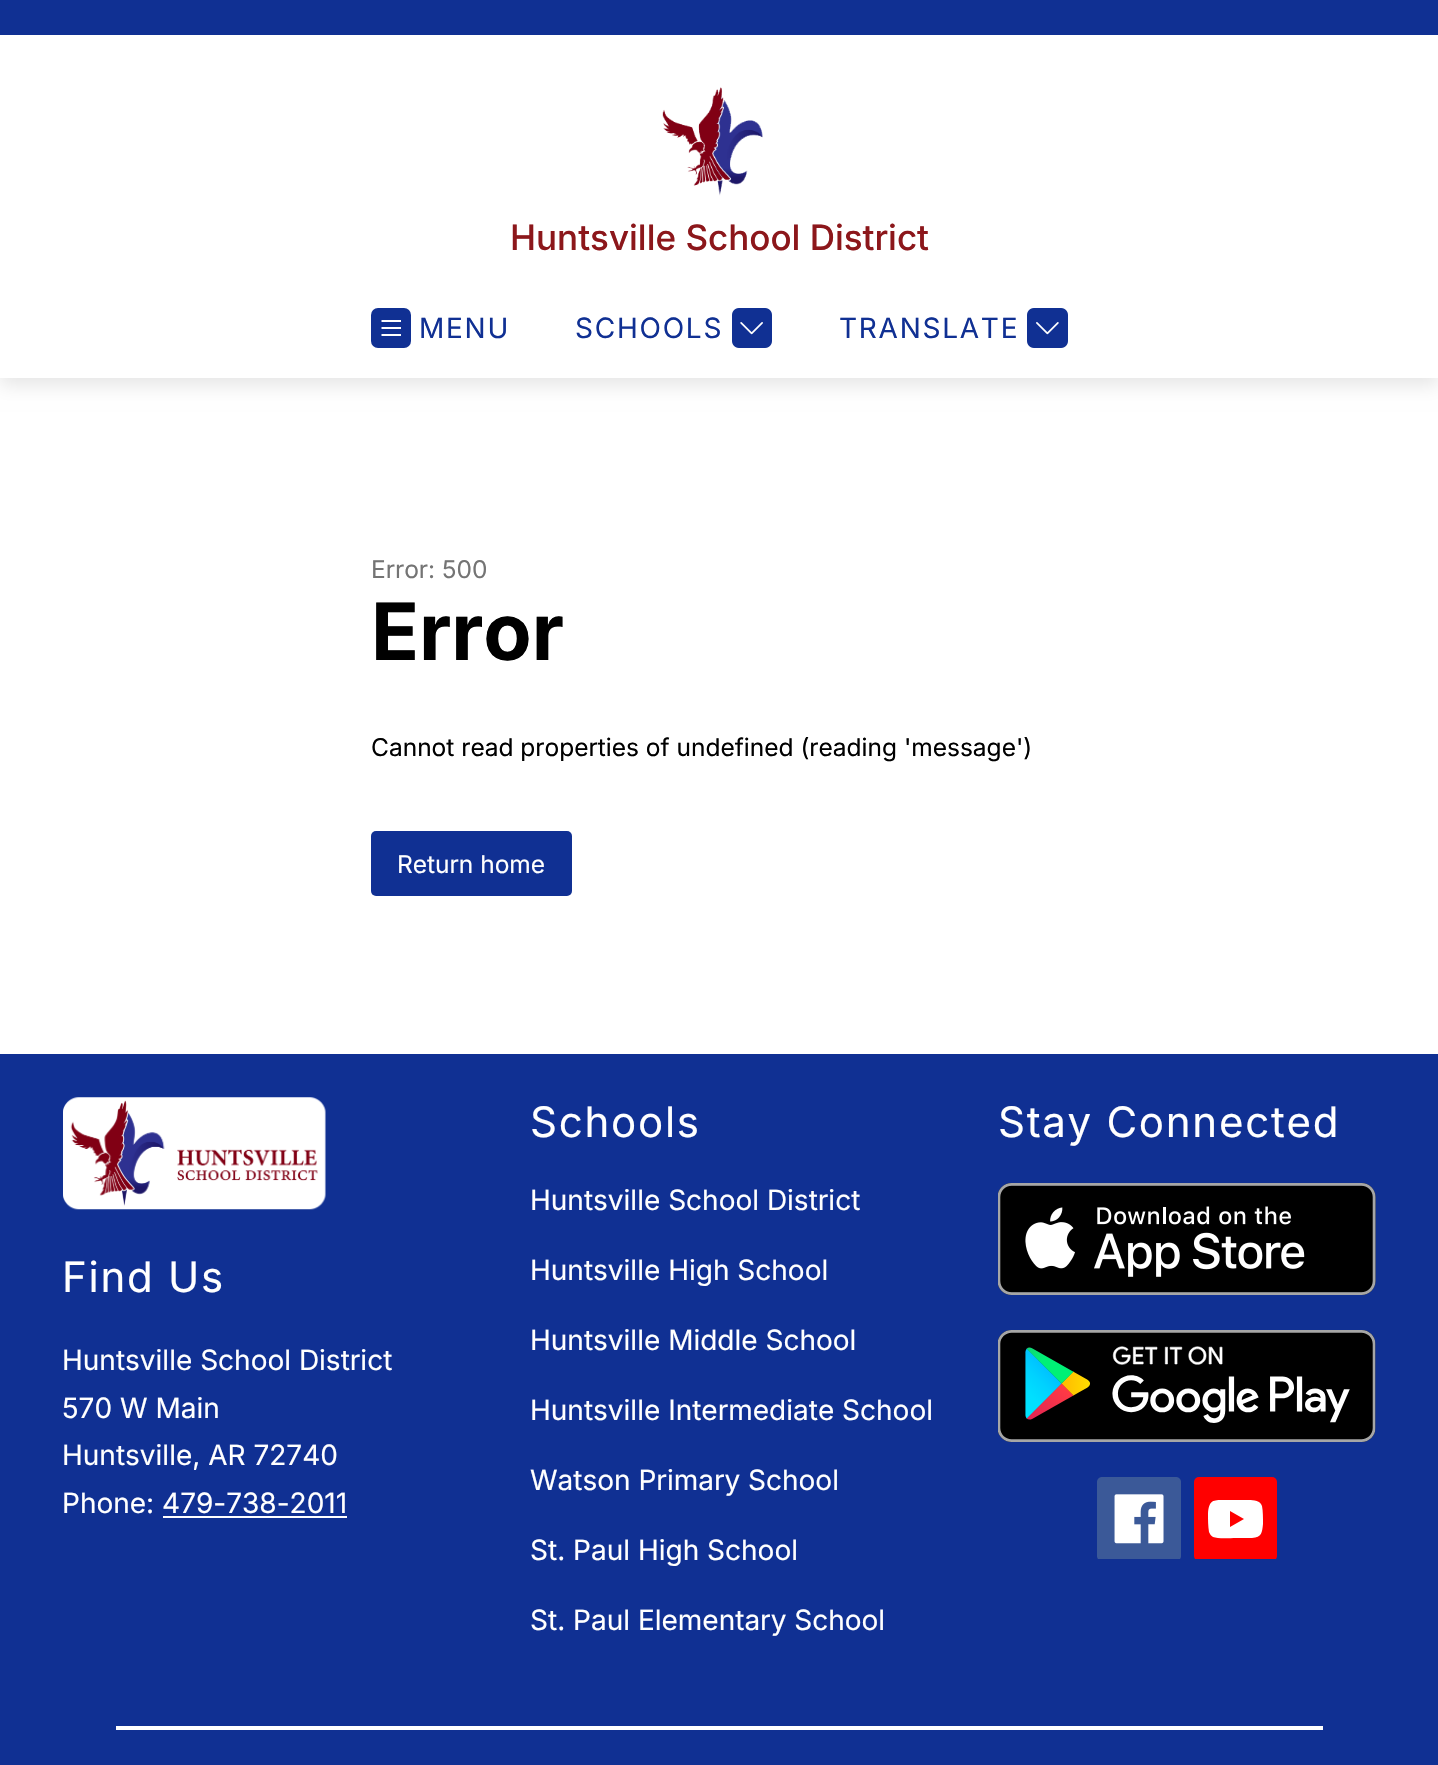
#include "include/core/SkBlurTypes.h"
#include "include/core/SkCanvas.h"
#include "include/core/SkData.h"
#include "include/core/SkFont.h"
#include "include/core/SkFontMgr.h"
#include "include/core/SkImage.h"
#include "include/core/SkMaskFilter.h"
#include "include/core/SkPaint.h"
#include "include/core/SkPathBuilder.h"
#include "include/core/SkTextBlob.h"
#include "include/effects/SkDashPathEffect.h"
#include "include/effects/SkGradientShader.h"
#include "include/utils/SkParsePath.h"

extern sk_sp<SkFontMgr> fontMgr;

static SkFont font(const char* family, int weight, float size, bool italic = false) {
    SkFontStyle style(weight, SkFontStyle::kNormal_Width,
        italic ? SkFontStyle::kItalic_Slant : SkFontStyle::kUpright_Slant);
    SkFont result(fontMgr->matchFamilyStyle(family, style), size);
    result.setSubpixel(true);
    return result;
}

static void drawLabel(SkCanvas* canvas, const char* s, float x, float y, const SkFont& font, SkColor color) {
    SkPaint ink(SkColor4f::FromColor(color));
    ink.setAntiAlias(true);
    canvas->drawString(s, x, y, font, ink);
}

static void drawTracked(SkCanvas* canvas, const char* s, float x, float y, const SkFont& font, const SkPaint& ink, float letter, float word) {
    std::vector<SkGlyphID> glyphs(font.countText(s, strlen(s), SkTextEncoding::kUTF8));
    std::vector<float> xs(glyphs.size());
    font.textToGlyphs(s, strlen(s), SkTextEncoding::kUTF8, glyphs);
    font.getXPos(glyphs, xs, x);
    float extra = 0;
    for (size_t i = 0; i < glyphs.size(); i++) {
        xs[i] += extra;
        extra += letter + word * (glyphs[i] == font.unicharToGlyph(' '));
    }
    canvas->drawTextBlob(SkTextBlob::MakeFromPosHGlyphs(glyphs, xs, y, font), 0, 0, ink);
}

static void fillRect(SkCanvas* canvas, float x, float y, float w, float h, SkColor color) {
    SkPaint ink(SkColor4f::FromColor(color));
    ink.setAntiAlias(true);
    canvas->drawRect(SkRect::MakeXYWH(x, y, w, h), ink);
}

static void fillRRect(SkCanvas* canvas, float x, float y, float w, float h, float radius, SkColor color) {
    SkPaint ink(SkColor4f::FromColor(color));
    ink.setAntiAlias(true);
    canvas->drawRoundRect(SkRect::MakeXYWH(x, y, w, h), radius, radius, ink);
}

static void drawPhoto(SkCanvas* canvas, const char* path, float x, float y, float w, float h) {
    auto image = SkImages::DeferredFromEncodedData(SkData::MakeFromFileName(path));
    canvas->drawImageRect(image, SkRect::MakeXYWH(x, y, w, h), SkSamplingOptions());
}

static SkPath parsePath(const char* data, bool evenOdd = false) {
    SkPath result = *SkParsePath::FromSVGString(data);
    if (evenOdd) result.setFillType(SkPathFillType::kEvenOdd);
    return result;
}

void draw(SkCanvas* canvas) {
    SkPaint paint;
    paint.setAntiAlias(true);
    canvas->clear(0xFFFFFFFF);
    paint.setColor(0x1A000000);
    paint.setMaskFilter(SkMaskFilter::MakeBlur(kNormal_SkBlurStyle, 9));
    canvas->drawRect(SkRect::MakeXYWH(0, -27, 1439, 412), paint);
    paint.setMaskFilter(nullptr);
    fillRect(canvas, 0, 0, 1438, 35, 0xFF103093);
    fillRect(canvas, 0, 35, 1438, 343, 0xFFFFFFFF);
    drawPhoto(canvas, "assets/img1.png", 662, 87, 101, 109);
    SkFont font1 = font("Inter", 500, 35);
    drawLabel(canvas, "Huntsville School District", 510, 250, font1, 0xFF8C171B);
    fillRRect(canvas, 371, 308, 40, 40, 7, 0xFF103093);
    paint.setColor(0xFFFFFFFF);
    canvas->drawPath(parsePath("M381.5 320H401V322H381.5ZM381.5 327H401V329H381.5ZM401 334H381.5V336H401Z", true), paint);
    SkFont font2 = font("Inter", 400, 28);
    paint.setColor(0xFF103093);
    drawTracked(canvas, "MENU", 419, 338, font2, paint, 1.75f, 0);
    drawTracked(canvas, "SCHOOLS", 575, 338, font2, paint, 1.75f, 0);
    drawPhoto(canvas, "assets/img2.png", 732, 308, 40, 40);
    drawTracked(canvas, "TRANSLATE", 839, 338, font2, paint, 1.75f, 0);
    drawPhoto(canvas, "assets/img3.png", 1027, 308, 41, 40);
    SkFont font3 = font("Inter", 400, 24.5f);
    drawLabel(canvas, "Error: 500", 371, 578, font3, 0xFF747474);
    SkFont font4 = font("Inter", 700, 79);
    drawLabel(canvas, "Error", 371, 660, font4, 0xFF000000);
    drawLabel(canvas, "Cannot read properties of undefined (reading 'message')", 371, 756, font3, 0xFF000000);
    fillRRect(canvas, 371, 831, 201, 65, 5, 0xFF103093);
    drawLabel(canvas, "Return home", 397, 873, font3, 0xFFFFFFFF);
    fillRect(canvas, 0, 1054, 1438, 711, 0xFF103093);
    SkFont font5 = font("Inter", 400, 42);
    paint.setColor(0xFFFFFFFF);
    drawTracked(canvas, "Schools", 530, 1137, font5, paint, 1.75f, 0);
    drawLabel(canvas, "Huntsville School District", 530, 1210, font2, 0xFFFFFFFF);
    drawLabel(canvas, "Huntsville High School", 530, 1280, font2, 0xFFFFFFFF);
    drawLabel(canvas, "Huntsville Middle School", 530, 1350, font2, 0xFFFFFFFF);
    drawLabel(canvas, "Huntsville Intermediate School", 530, 1420, font2, 0xFFFFFFFF);
    drawLabel(canvas, "Watson Primary School", 530, 1490, font2, 0xFFFFFFFF);
    drawLabel(canvas, "St. Paul High School", 530, 1560, font2, 0xFFFFFFFF);
    drawLabel(canvas, "St. Paul Elementary School", 530, 1630, font2, 0xFFFFFFFF);
    drawTracked(canvas, "Stay Connected", 998, 1137, font5, paint, 1.75f, 0);
    drawPhoto(canvas, "assets/img4.png", 998, 1183, 378, 112);
    drawPhoto(canvas, "assets/img5.png", 998, 1330, 378, 112);
    drawPhoto(canvas, "assets/img6.png", 1097, 1477, 84, 82);
    canvas->save();
    canvas->clipRect(SkRect::MakeXYWH(1194, 1477, 84, 82));
    fillRRect(canvas, 1194, 1477, 83, 84, 5, 0xFFFF0000);
    canvas->restore();
    canvas->drawPath(parsePath("M1262 1506C1260 1499 1250 1500 1244 1500H1230C1214 1500 1209 1498 1208 1514C1208 1520 1208 1526 1209 1532C1210 1534 1211 1536 1213 1537C1218 1539 1230 1538 1236 1538H1252C1262 1537 1262 1533 1263 1524C1263 1518 1263 1511 1262 1506ZM1230 1527V1511L1244 1519Z"), paint);
    drawPhoto(canvas, "assets/img7.png", 63, 1097, 263, 113);
    drawTracked(canvas, "Find Us", 62, 1292, font5, paint, 1.75f, 0);
    drawLabel(canvas, "Huntsville School District", 62, 1370, font2, 0xFFFFFFFF);
    drawLabel(canvas, "570 W Main", 62, 1418, font2, 0xFFFFFFFF);
    drawLabel(canvas, "Huntsville, AR 72740", 62, 1465, font2, 0xFFFFFFFF);
    drawLabel(canvas, "Phone: 479-738-2011", 62, 1513, font2, 0xFFFFFFFF);
    fillRect(canvas, 163, 1516, 184, 2, 0xFFFFFFFF);
    fillRect(canvas, 116, 1726, 1207, 4, 0xFFFFFFFF);
}
